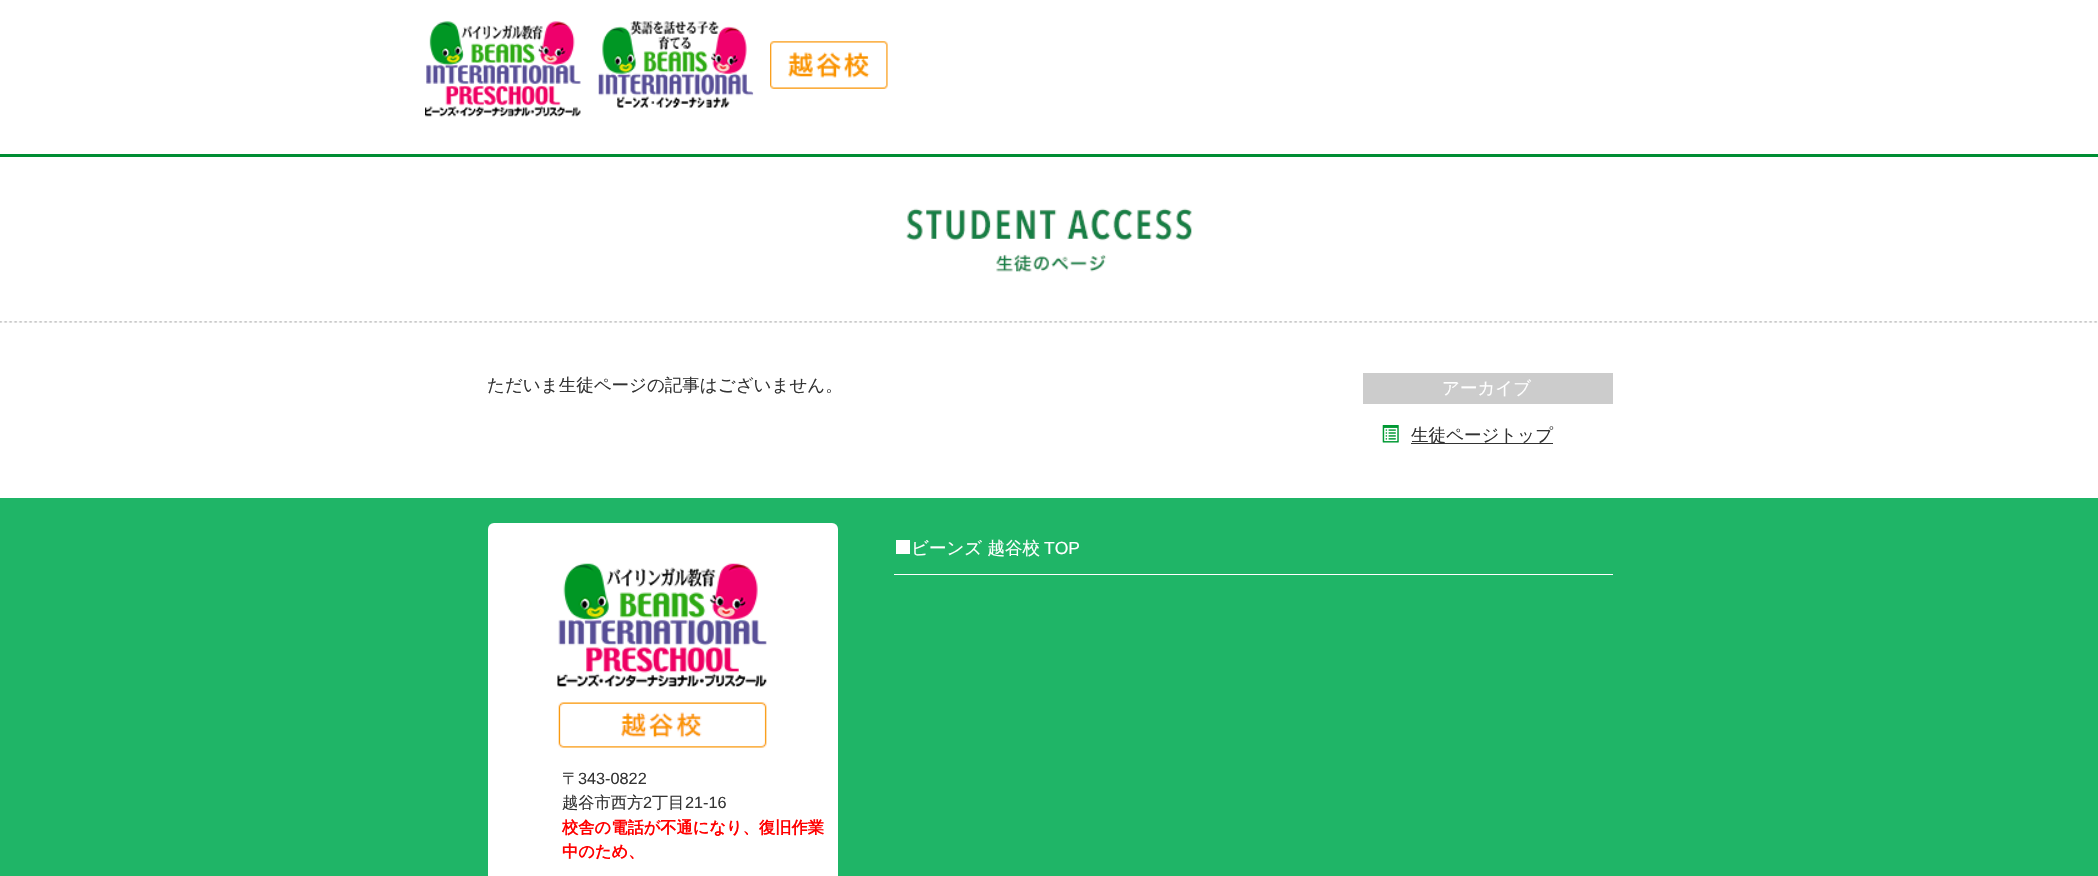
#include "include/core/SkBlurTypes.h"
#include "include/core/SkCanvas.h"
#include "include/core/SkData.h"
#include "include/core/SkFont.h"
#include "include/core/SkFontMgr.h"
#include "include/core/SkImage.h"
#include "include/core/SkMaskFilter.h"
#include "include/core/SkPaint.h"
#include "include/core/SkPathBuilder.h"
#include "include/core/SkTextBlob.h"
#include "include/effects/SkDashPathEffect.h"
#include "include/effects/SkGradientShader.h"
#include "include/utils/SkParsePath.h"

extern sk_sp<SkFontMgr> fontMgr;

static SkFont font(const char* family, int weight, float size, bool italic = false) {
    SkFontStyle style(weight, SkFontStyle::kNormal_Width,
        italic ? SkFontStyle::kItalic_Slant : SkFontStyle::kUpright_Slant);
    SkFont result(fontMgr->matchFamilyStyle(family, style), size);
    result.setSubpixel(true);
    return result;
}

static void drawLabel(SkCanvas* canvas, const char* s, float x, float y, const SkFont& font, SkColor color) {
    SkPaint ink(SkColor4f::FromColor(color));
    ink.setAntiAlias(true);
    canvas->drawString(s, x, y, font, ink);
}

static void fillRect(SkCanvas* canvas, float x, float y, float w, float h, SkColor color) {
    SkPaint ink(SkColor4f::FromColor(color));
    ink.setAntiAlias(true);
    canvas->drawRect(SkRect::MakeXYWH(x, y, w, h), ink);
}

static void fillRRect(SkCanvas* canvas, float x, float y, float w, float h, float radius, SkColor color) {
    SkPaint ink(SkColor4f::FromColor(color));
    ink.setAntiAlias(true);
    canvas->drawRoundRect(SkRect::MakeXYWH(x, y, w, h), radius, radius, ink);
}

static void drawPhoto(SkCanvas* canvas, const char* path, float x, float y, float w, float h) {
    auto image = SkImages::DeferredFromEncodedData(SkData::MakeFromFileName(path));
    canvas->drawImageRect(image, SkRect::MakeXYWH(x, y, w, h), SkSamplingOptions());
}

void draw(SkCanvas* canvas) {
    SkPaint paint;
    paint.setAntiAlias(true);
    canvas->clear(0xFFFFFFFF);
    drawPhoto(canvas, "assets/img1.png", 425, 21, 463, 96);
    drawPhoto(canvas, "assets/img2.png", 0, 321, 2098, 2);
    fillRect(canvas, 0, 154, 2098, 3, 0xFF008D33);
    drawPhoto(canvas, "assets/img3.png", 906, 208, 286, 65);
    SkFont font1 = font("WenQuanYi Zen Hei", 500, 17.5f);
    drawLabel(canvas, "ただいま生徒ページの記事はございません。", 487, 391, font1, 0xFF333333);
    fillRect(canvas, 1363, 373, 250, 31, 0xFFCCCCCC);
    drawLabel(canvas, "アーカイブ", 1442, 394, font1, 0xFFFFFFFF);
    drawPhoto(canvas, "assets/img4.png", 1382, 425, 17, 18);
    fillRect(canvas, 1411, 443, 142, 1, 0xFF333333);
    drawLabel(canvas, "生徒ページトップ", 1411, 441, font1, 0xFF333333);
    fillRect(canvas, 0, 498, 2098, 378, 0xFF1FB567);
    fillRect(canvas, 894, 574, 719, 1, 0xFFFFFFFF);
    fillRect(canvas, 896, 540, 14, 14, 0xFFFFFFFF);
    drawLabel(canvas, "ビーンズ 越谷校", 911, 554, font1, 0xFFFFFFFF);
    SkFont font2 = font("Liberation Sans", 400, 17.5f);
    drawLabel(canvas, "TOP", 1044, 554, font2, 0xFFFFFFFF);
    fillRRect(canvas, 488, 523, 350, 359, 6, 0xFFFFFFFF);
    drawPhoto(canvas, "assets/img5.png", 557, 563, 210, 185);
    SkFont font3 = font("WenQuanYi Zen Hei", 500, 16.25f);
    drawLabel(canvas, "〒", 562, 784, font3, 0xFF333333);
    SkFont font4 = font("Liberation Sans", 400, 16.25f);
    drawLabel(canvas, "343-0822", 578, 784, font4, 0xFF333333);
    drawLabel(canvas, "越谷市西方", 562, 808, font3, 0xFF333333);
    drawLabel(canvas, "2", 643, 808, font4, 0xFF333333);
    drawLabel(canvas, "丁目", 652, 808, font3, 0xFF333333);
    drawLabel(canvas, "21-16", 685, 808, font4, 0xFF333333);
    SkFont font5 = font("WenQuanYi Zen Hei", 700, 16.25f);
    drawLabel(canvas, "校舎の電話が不通になり、復旧作業", 562, 833, font5, 0xFFFF0000);
    drawLabel(canvas, "中のため、", 562, 857, font5, 0xFFFF0000);
}
